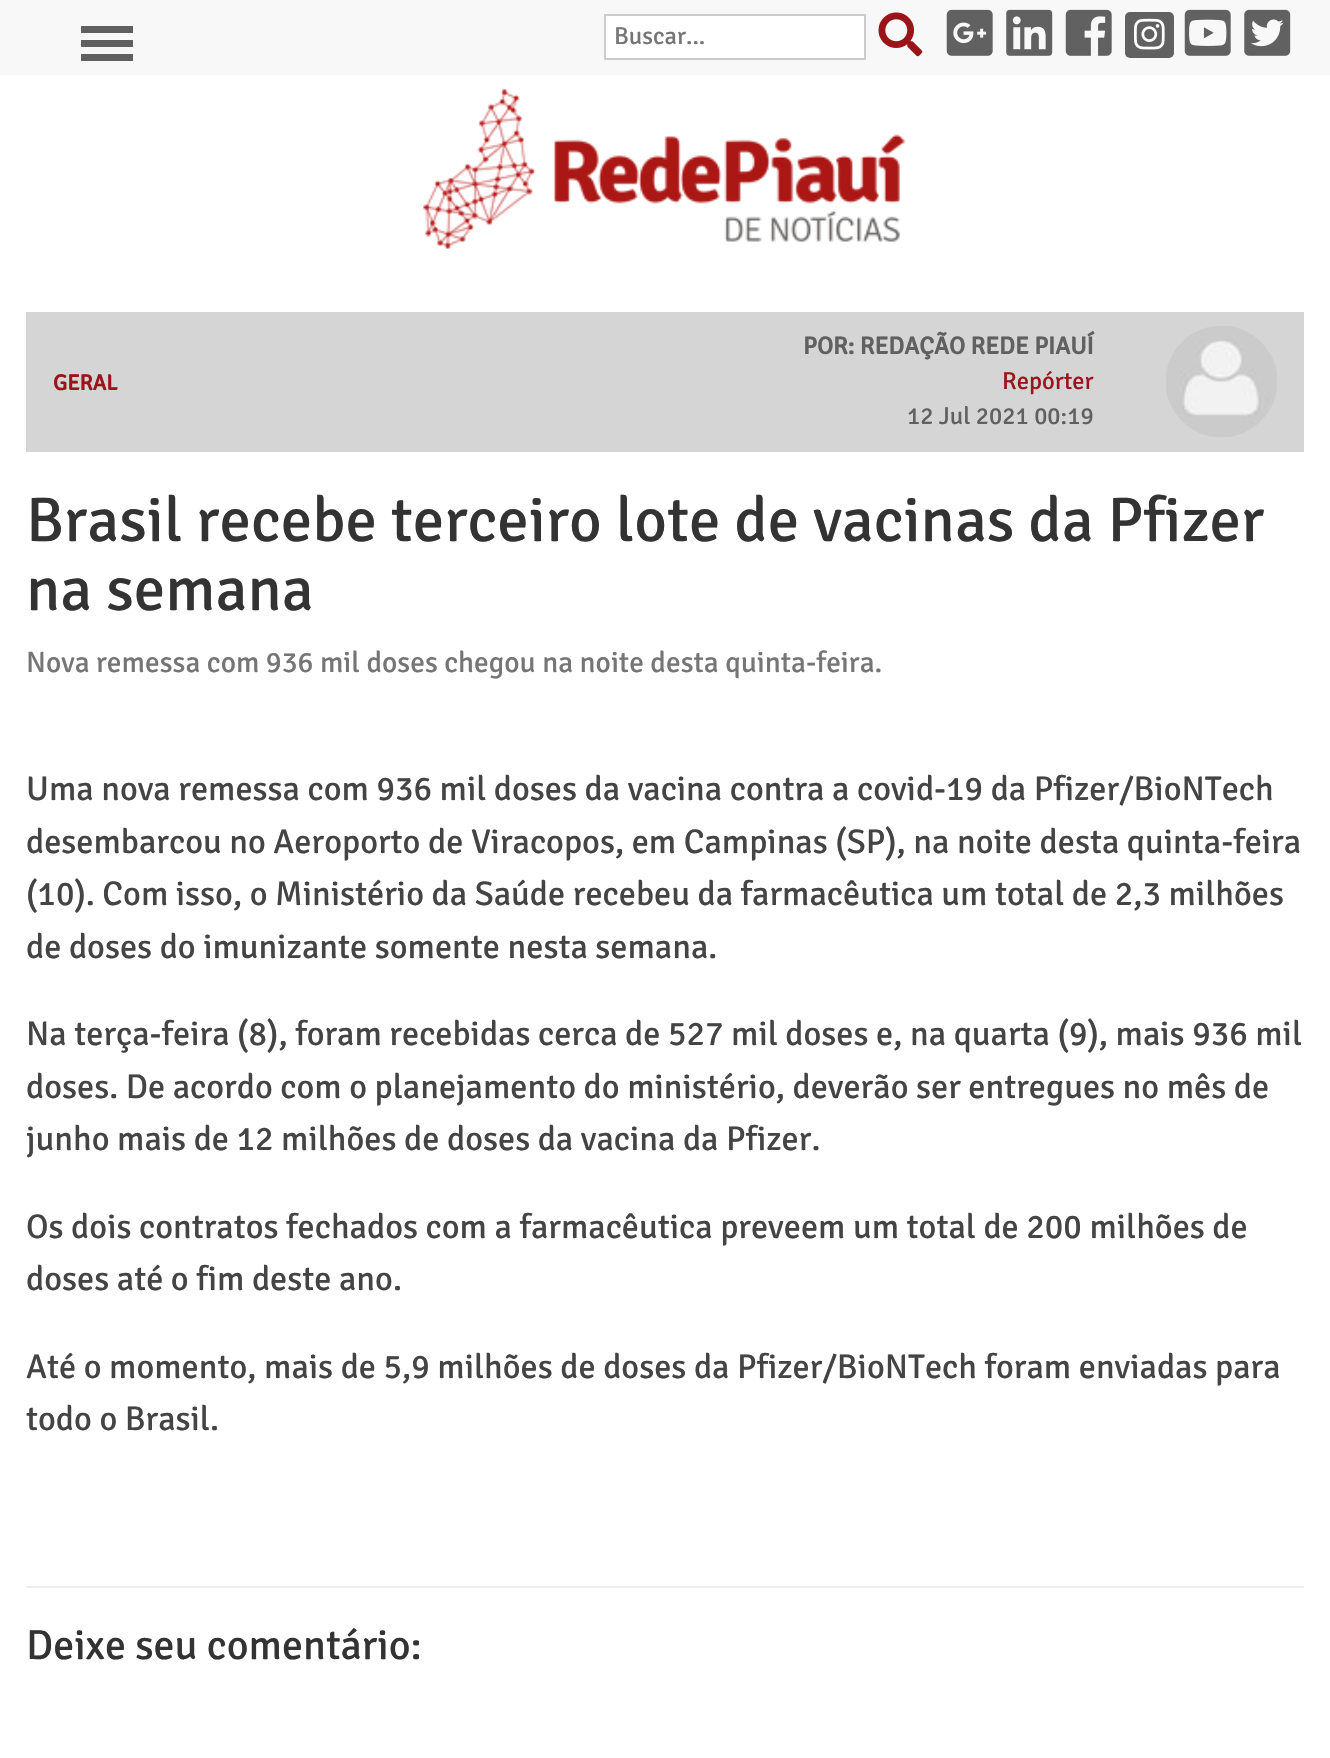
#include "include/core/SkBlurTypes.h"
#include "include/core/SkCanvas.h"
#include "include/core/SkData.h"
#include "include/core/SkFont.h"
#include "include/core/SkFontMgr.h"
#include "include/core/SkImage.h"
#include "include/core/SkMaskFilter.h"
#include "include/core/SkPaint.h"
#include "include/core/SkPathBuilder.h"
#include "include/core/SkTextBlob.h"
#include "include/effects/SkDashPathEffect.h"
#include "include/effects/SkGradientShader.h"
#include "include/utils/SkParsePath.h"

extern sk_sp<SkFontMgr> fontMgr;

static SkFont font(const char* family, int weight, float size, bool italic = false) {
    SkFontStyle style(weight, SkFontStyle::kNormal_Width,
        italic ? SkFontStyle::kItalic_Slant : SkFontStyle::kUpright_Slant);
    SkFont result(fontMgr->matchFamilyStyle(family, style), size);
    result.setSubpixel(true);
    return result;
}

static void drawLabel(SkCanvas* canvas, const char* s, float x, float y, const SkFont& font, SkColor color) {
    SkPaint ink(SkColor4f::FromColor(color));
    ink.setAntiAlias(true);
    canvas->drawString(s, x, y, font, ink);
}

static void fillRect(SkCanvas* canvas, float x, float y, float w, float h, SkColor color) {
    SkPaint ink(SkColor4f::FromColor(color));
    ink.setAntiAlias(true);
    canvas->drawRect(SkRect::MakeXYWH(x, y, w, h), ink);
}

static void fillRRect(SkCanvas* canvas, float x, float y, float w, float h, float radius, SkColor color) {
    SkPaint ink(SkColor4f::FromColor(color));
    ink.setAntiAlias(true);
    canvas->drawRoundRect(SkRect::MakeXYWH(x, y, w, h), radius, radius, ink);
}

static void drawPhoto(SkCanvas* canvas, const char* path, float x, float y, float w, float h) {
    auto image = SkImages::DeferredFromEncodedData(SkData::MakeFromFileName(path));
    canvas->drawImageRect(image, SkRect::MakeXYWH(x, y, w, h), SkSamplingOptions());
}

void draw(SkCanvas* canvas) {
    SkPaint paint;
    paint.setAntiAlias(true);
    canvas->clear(0xFFFFFFFF);
    fillRect(canvas, 0, 0, 1330, 75, 0xFFF8F8F8);
    fillRect(canvas, 81, 26, 52, 7, 0xFF606060);
    fillRect(canvas, 81, 40, 52, 7, 0xFF606060);
    fillRect(canvas, 81, 54, 52, 7, 0xFF606060);
    paint.setColor(0xFFFFFFFF);
    canvas->drawRect(SkRect::MakeXYWH(605, 15, 260, 44), paint);
    paint.setStroke(true);
    paint.setStrokeWidth(2);
    paint.setColor(0xFFCCCCCC);
    canvas->drawRect(SkRect::MakeXYWH(605, 15, 260, 44), paint);
    SkFont font1 = font("Signika", 300, 24.5f);
    drawLabel(canvas, "Buscar...", 614, 44, font1, 0xFF757575);
    drawPhoto(canvas, "assets/img1.png", 878, 12, 45, 45);
    drawPhoto(canvas, "assets/img2.png", 946, 9, 47, 47);
    drawPhoto(canvas, "assets/img3.png", 1006, 9, 47, 47);
    drawPhoto(canvas, "assets/img4.png", 1065, 9, 47, 47);
    fillRRect(canvas, 1125, 12, 49, 46, 5, 0xFF616161);
    drawPhoto(canvas, "assets/img5.png", 1134, 18, 31, 32);
    drawPhoto(canvas, "assets/img6.png", 1184, 9, 47, 47);
    drawPhoto(canvas, "assets/img7.png", 1244, 9, 47, 47);
    drawPhoto(canvas, "assets/img8.png", 423, 88, 483, 161);
    fillRect(canvas, 26, 312, 1278, 140, 0xFFD5D5D5);
    SkFont font2 = font("Signika", 700, 24.5f);
    drawLabel(canvas, "POR: REDAÇÃO REDE PIAUÍ", 803, 354, font2, 0xFF606060);
    drawPhoto(canvas, "assets/img9.png", 1166, 326, 111, 111);
    SkFont font3 = font("Signika", 700, 22);
    drawLabel(canvas, "GERAL", 53, 390, font3, 0xFF9A151A);
    drawLabel(canvas, "Repórter", 1002, 389, font1, 0xFF9A151A);
    drawLabel(canvas, "12 Jul 2021 00:19", 907, 424, font1, 0xFF606060);
    SkFont font4 = font("Signika", 300, 63);
    drawLabel(canvas, "Brasil recebe terceiro lote de vacinas da Pfizer", 26, 541, font4, 0xFF333333);
    drawLabel(canvas, "na semana", 26, 610, font4, 0xFF333333);
    SkFont font5 = font("Signika", 300, 29.4f);
    drawLabel(canvas, "Nova remessa com 936 mil doses chegou na noite desta quinta-feira.", 26, 672, font5, 0xFF757575);
    SkFont font6 = font("Signika", 300, 34.3f);
    drawLabel(canvas, "Uma nova remessa com 936 mil doses da vacina contra a covid-19 da Pfizer/BioNTech", 26, 800, font6, 0xFF444444);
    drawLabel(canvas, "desembarcou no Aeroporto de Viracopos, em Campinas (SP), na noite desta quinta-feira", 26, 853, font6, 0xFF444444);
    drawLabel(canvas, "(10). Com isso, o Ministério da Saúde recebeu da farmacêutica um total de 2,3 milhões", 26, 905, font6, 0xFF444444);
    drawLabel(canvas, "de doses do imunizante somente nesta semana.", 26, 958, font6, 0xFF444444);
    drawLabel(canvas, "Na terça-feira (8), foram recebidas cerca de 527 mil doses e, na quarta (9), mais 936 mil", 26, 1045, font6, 0xFF444444);
    drawLabel(canvas, "doses. De acordo com o planejamento do ministério, deverão ser entregues no mês de", 26, 1098, font6, 0xFF444444);
    drawLabel(canvas, "junho mais de 12 milhões de doses da vacina da Pfizer.", 26, 1150, font6, 0xFF444444);
    drawLabel(canvas, "Os dois contratos fechados com a farmacêutica preveem um total de 200 milhões de", 26, 1238, font6, 0xFF444444);
    drawLabel(canvas, "doses até o fim deste ano.", 26, 1290, font6, 0xFF444444);
    drawLabel(canvas, "Até o momento, mais de 5,9 milhões de doses da Pfizer/BioNTech foram enviadas para", 26, 1378, font6, 0xFF444444);
    drawLabel(canvas, "todo o Brasil.", 26, 1430, font6, 0xFF444444);
    fillRect(canvas, 26, 1586, 1278, 2, 0xFFEEEEEE);
    SkFont font7 = font("Signika", 300, 42);
    drawLabel(canvas, "Deixe seu comentário:", 26, 1659, font7, 0xFF333333);
}
